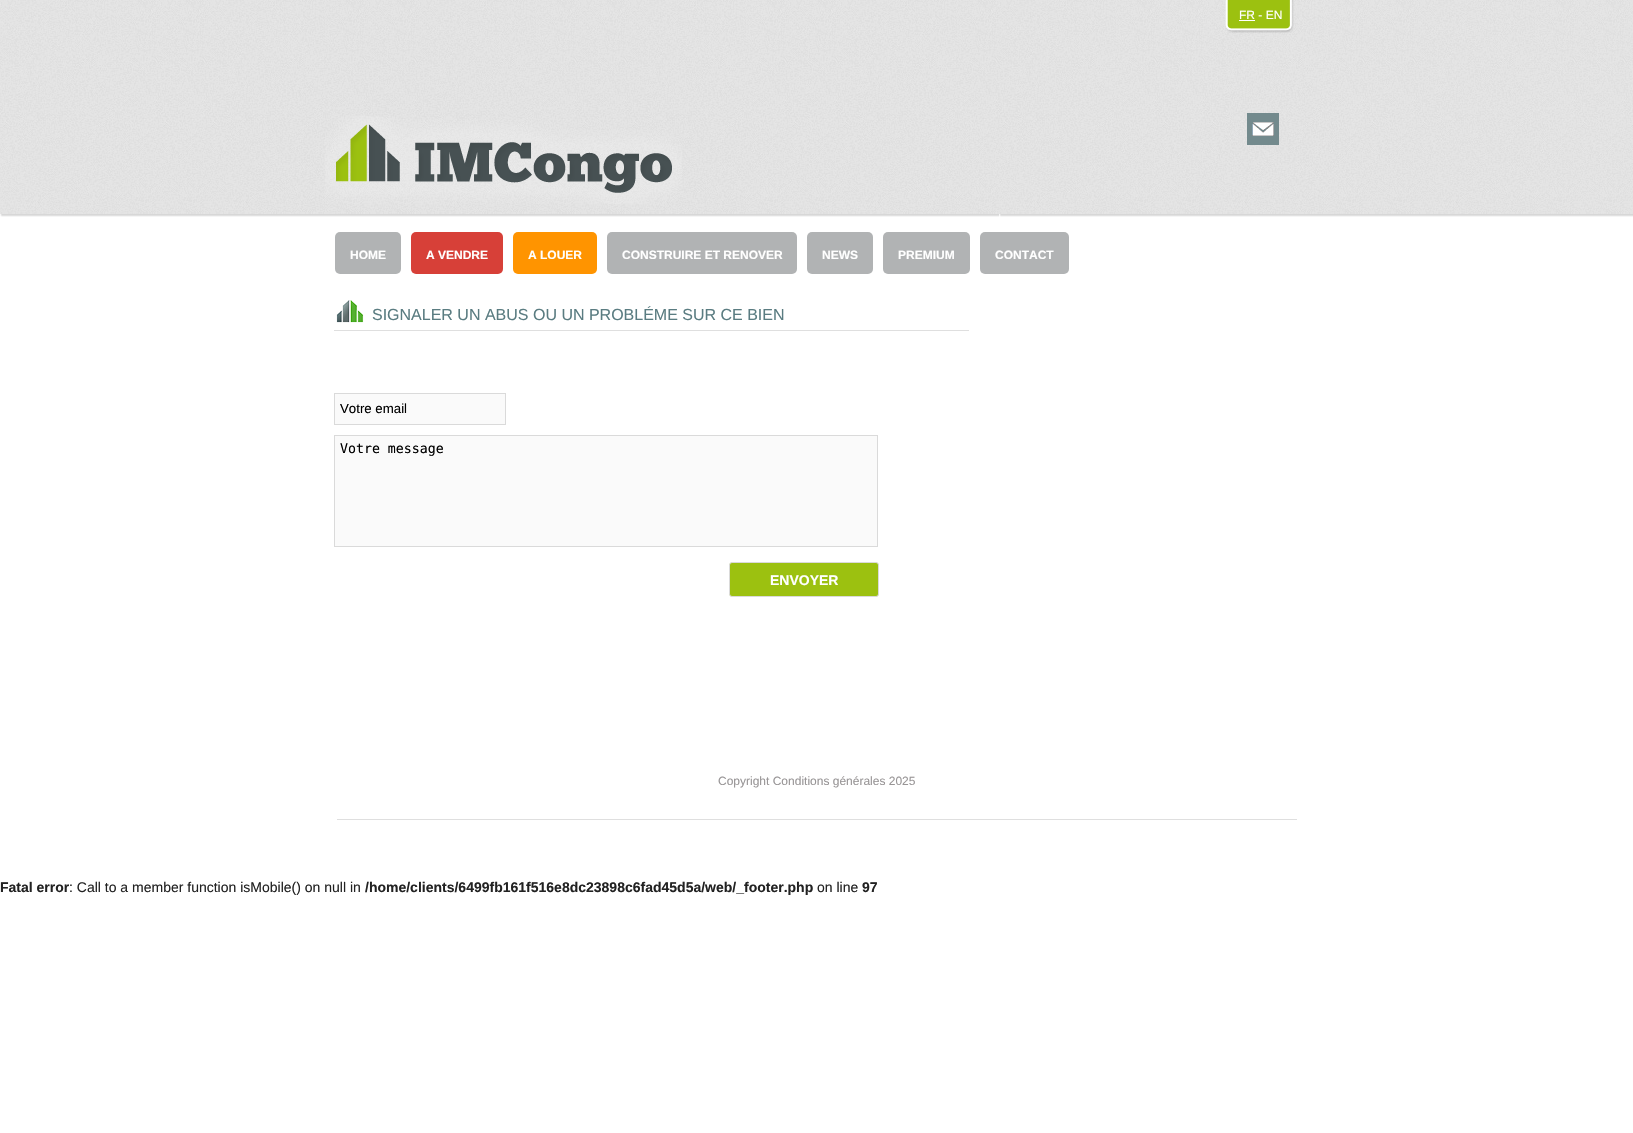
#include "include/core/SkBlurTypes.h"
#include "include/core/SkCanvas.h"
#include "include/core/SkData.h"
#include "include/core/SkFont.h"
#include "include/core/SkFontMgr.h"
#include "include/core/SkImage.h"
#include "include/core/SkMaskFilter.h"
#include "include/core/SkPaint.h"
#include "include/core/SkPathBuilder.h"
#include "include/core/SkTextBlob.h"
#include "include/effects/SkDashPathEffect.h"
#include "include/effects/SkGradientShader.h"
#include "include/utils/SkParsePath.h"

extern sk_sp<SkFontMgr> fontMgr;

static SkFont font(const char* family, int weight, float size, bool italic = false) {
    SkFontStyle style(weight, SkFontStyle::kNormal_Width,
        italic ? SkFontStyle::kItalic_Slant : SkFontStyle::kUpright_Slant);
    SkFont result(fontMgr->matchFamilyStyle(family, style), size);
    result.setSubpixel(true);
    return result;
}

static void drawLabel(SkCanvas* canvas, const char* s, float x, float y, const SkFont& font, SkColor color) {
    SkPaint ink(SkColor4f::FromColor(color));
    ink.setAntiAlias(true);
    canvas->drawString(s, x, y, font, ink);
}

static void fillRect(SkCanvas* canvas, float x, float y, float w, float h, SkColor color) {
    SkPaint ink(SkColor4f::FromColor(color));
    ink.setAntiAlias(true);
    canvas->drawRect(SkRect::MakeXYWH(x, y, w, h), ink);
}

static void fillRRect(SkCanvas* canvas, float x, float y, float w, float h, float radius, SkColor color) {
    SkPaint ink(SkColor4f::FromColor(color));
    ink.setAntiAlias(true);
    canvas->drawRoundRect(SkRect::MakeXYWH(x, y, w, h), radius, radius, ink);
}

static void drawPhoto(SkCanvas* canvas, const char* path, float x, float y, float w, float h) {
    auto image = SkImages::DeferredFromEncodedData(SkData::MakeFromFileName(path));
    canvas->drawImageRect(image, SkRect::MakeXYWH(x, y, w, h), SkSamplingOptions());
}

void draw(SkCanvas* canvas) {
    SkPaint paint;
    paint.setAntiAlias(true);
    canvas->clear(0xFFFFFFFF);
    drawPhoto(canvas, "assets/img1.png", 0, 0, 1633, 217);
    drawPhoto(canvas, "assets/img2.png", 1225, 0, 69, 33);
    SkFont font1 = font("Liberation Sans", 400, 12);
    drawLabel(canvas, "FR - EN", 1239, 19, font1, 0xFFFFFFFF);
    fillRect(canvas, 1239, 20, 16, 1, 0xFFFFFFFF);
    drawPhoto(canvas, "assets/img3.png", 325, 116, 357, 88);
    drawPhoto(canvas, "assets/img4.png", 1247, 113, 32, 32);
    fillRRect(canvas, 335, 232, 66, 42, 5, 0xFFB1B3B4);
    SkFont font2 = font("Liberation Sans", 700, 12);
    drawLabel(canvas, "HOME", 350, 259, font2, 0xFFFFFFFF);
    fillRRect(canvas, 411, 232, 92, 42, 5, 0xFFD74038);
    drawLabel(canvas, "A VENDRE", 426, 259, font2, 0xFFFFFFFF);
    fillRRect(canvas, 513, 232, 84, 42, 5, 0xFFFF9400);
    drawLabel(canvas, "A LOUER", 528, 259, font2, 0xFFFFFFFF);
    fillRRect(canvas, 607, 232, 190, 42, 5, 0xFFB1B3B4);
    drawLabel(canvas, "CONSTRUIRE ET RENOVER", 622, 259, font2, 0xFFFFFFFF);
    fillRRect(canvas, 807, 232, 66, 42, 5, 0xFFB1B3B4);
    drawLabel(canvas, "NEWS", 822, 259, font2, 0xFFFFFFFF);
    fillRRect(canvas, 883, 232, 87, 42, 5, 0xFFB1B3B4);
    drawLabel(canvas, "PREMIUM", 898, 259, font2, 0xFFFFFFFF);
    fillRRect(canvas, 980, 232, 89, 42, 5, 0xFFB1B3B4);
    drawLabel(canvas, "CONTACT", 995, 259, font2, 0xFFFFFFFF);
    drawPhoto(canvas, "assets/img5.png", 336, 300, 28, 23);
    fillRect(canvas, 334, 330, 635, 1, 0xFFDFDFDF);
    SkFont font3 = font("Liberation Sans", 400, 16);
    drawLabel(canvas, "SIGNALER UN ABUS OU UN PROBLÉME SUR CE BIEN", 372, 320, font3, 0xFF5A7C81);
    paint.setColor(0xFFFAFAFA);
    canvas->drawRect(SkRect::MakeXYWH(334.5f, 393.5f, 171, 31), paint);
    paint.setStroke(true);
    paint.setStrokeWidth(1);
    paint.setColor(0xFFDADADA);
    canvas->drawRect(SkRect::MakeXYWH(334.5f, 393.5f, 171, 31), paint);
    SkFont font4 = font("Liberation Sans", 400, 13.25f);
    drawLabel(canvas, "Votre email", 340, 413, font4, 0xFF000000);
    paint.setStroke(false);
    paint.setColor(0xFFFAFAFA);
    canvas->drawRect(SkRect::MakeXYWH(334.5f, 435.5f, 543, 111), paint);
    paint.setStroke(true);
    paint.setColor(0xFFDADADA);
    canvas->drawRect(SkRect::MakeXYWH(334.5f, 435.5f, 543, 111), paint);
    SkFont font5 = font("DejaVu Sans Mono", 400, 13.25f);
    drawLabel(canvas, "Votre message", 340, 453, font5, 0xFF000000);
    paint.setStroke(false);
    paint.setColor(0xFF9CC110);
    canvas->drawRoundRect(SkRect::MakeXYWH(729.5f, 562.5f, 149, 34), 2.5f, 2.5f, paint);
    paint.setStroke(true);
    paint.setColor(0xFFDADADA);
    canvas->drawRoundRect(SkRect::MakeXYWH(729.5f, 562.5f, 149, 34), 2.5f, 2.5f, paint);
    SkFont font6 = font("Liberation Sans", 700, 14);
    drawLabel(canvas, "ENVOYER", 770, 585, font6, 0xFFFFFFFF);
    fillRect(canvas, 337, 819, 960, 1, 0xFFDFDFDF);
    drawLabel(canvas, "Copyright Conditions générales 2025", 718, 785, font1, 0xFF989596);
    drawLabel(canvas, "Fatal error", 0, 892, font6, 0xFF222222);
    SkFont font7 = font("Liberation Sans", 400, 14);
    drawLabel(canvas, ": Call to a member function isMobile() on null in", 69, 892, font7, 0xFF222222);
    drawLabel(canvas, "/home/clients/6499fb161f516e8dc23898c6fad45d5a/web/_footer.php", 365, 892, font6, 0xFF222222);
    drawLabel(canvas, "on line", 817, 892, font7, 0xFF222222);
    drawLabel(canvas, "97", 862, 892, font6, 0xFF222222);
}
